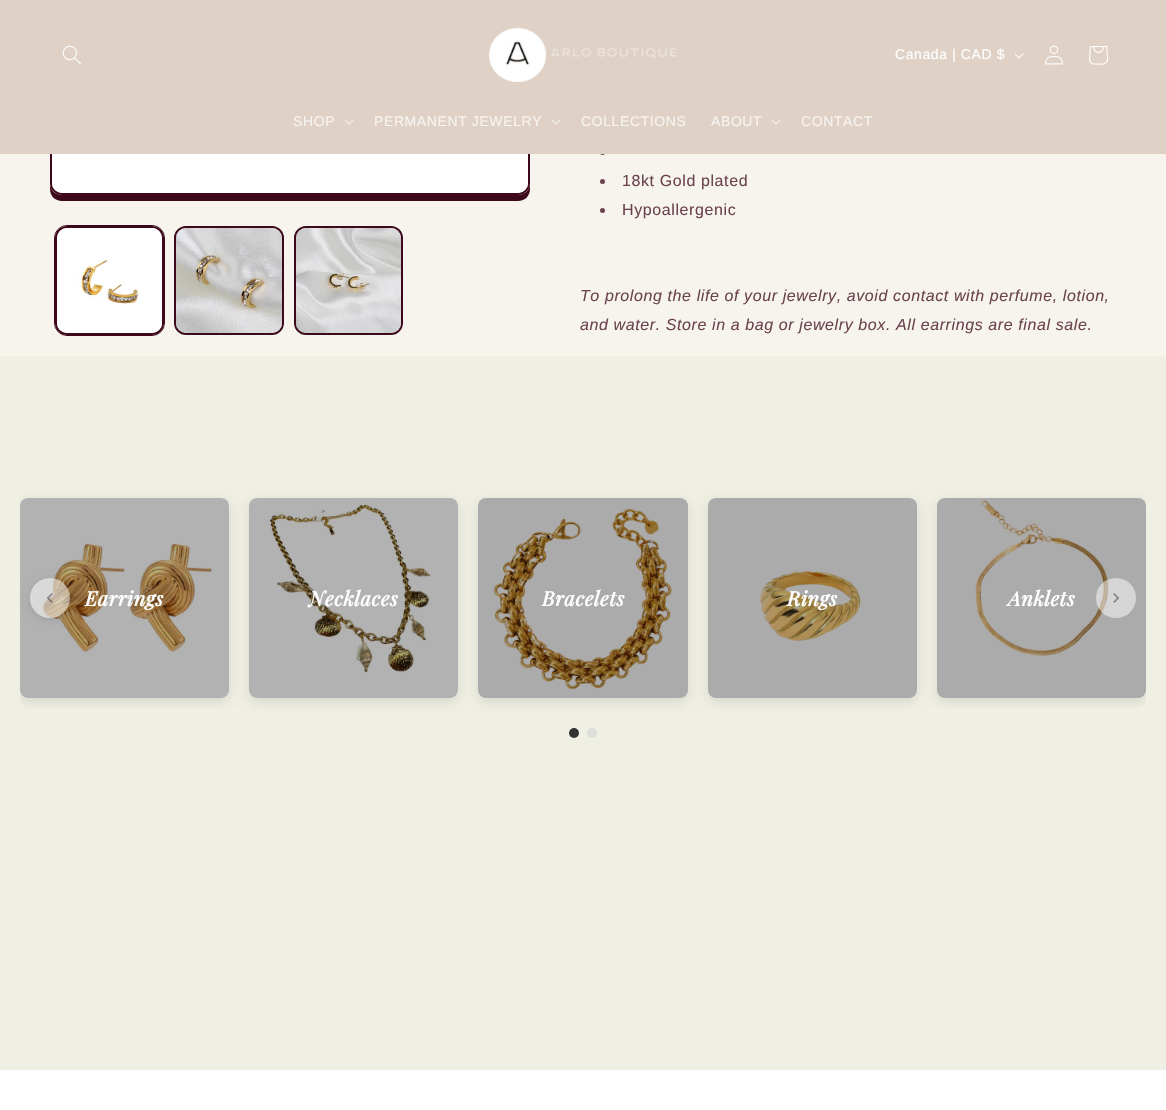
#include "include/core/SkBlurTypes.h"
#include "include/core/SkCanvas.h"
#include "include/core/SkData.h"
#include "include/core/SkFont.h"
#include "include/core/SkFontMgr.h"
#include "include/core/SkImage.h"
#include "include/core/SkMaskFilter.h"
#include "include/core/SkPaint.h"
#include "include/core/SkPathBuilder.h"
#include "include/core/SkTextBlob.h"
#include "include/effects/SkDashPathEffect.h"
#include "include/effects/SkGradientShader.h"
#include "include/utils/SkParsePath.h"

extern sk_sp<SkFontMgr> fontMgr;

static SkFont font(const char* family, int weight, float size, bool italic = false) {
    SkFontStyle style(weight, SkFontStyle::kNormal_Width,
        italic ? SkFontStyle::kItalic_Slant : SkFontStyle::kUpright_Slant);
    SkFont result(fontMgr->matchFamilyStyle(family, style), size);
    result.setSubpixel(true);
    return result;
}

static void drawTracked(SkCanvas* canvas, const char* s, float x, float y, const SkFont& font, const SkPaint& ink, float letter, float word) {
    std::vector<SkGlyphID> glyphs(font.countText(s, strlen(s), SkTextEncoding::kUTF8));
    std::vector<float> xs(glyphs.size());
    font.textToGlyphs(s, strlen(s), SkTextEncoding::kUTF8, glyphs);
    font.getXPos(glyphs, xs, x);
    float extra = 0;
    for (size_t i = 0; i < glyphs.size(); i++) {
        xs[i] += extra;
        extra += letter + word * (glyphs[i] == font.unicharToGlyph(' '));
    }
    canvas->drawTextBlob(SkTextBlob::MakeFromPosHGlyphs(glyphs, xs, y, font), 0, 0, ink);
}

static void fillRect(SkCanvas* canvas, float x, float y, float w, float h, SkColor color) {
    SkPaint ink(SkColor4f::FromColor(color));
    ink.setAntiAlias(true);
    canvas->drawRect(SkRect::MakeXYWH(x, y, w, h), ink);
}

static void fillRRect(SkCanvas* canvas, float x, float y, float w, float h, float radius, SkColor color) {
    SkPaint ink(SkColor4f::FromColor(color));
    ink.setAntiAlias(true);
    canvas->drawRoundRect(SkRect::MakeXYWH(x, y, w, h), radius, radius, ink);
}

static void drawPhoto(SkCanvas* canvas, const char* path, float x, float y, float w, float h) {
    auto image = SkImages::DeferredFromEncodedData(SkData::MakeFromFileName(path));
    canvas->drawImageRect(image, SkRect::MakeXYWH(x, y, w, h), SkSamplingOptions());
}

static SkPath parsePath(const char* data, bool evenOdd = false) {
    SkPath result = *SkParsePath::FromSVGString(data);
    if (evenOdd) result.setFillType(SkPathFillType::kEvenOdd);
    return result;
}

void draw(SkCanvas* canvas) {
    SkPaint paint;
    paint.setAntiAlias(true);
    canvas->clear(0xFFEFEFE3);
    fillRect(canvas, 0, 154, 1166, 202, 0xFFF6F4ED);
    paint.setColor(0xFF3D081B);
    canvas->drawPath(parsePath("M50 183V189C50 196 55 201 62 201H518C525 201 530 196 530 189V183C530 190 525 195 518 195H62C55 195 50 190 50 183Z"), paint);
    paint.setColor(0xFFF6F4ED);
    canvas->drawRoundRect(SkRect::MakeXYWH(51, -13, 478, 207), 11, 11, paint);
    paint.setStroke(true);
    paint.setStrokeWidth(2);
    paint.setColor(0xFF3D081B);
    canvas->drawRoundRect(SkRect::MakeXYWH(51, -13, 478, 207), 11, 11, paint);
    paint.setStroke(false);
    paint.setColor(0xFF6B4350);
    canvas->drawCircle(602.5f, 152.5f, 2.5f, paint);
    fillRect(canvas, 0, 0, 1166, 154, 0xFFDFD1C5);
    drawPhoto(canvas, "assets/img1.png", 62, 45, 19, 20);
    drawPhoto(canvas, "assets/img2.png", 489, 27, 188, 55);
    SkFont font1 = font("Liberation Sans", 400, 14);
    paint.setColor(0xFFFFFFFF);
    drawTracked(canvas, "Canada | CAD $", 895, 59, font1, paint, 0.6f, 0);
    drawPhoto(canvas, "assets/img3.png", 1014, 53, 10, 6);
    drawPhoto(canvas, "assets/img4.png", 1045, 45, 18, 20);
    drawPhoto(canvas, "assets/img5.png", 1089, 46, 20, 19);
    paint.setColor(0xFFF7F4F1);
    drawTracked(canvas, "SHOP", 293, 126, font1, paint, 0.6f, 0);
    drawPhoto(canvas, "assets/img6.png", 344, 119, 10, 6);
    drawTracked(canvas, "PERMANENT JEWELRY", 374, 126, font1, paint, 0.6f, 0);
    drawPhoto(canvas, "assets/img6.png", 551, 119, 10, 6);
    drawTracked(canvas, "COLLECTIONS", 581, 126, font1, paint, 0.6f, 0);
    drawTracked(canvas, "ABOUT", 711, 126, font1, paint, 0.6f, 0);
    drawPhoto(canvas, "assets/img6.png", 771, 119, 10, 6);
    drawTracked(canvas, "CONTACT", 801, 126, font1, paint, 0.6f, 0);
    drawPhoto(canvas, "assets/img7.png", 52, 154, 476, 39);
    paint.setStroke(true);
    paint.setStrokeWidth(1);
    paint.setColor(0xFF3D081B);
    canvas->drawRoundRect(SkRect::MakeXYWH(54.5f, 225.5f, 110, 110), 12.5f, 12.5f, paint);
    paint.setStrokeWidth(2);
    canvas->drawRoundRect(SkRect::MakeXYWH(56, 227, 107, 107), 11, 11, paint);
    drawPhoto(canvas, "assets/img8.png", 57, 228, 105, 105);
    canvas->drawRoundRect(SkRect::MakeXYWH(175, 227, 108, 107), 11, 11, paint);
    drawPhoto(canvas, "assets/img9.png", 176, 228, 106, 105);
    canvas->drawRoundRect(SkRect::MakeXYWH(295, 227, 107, 107), 11, 11, paint);
    drawPhoto(canvas, "assets/img10.png", 296, 228, 105, 105);
    paint.setStroke(false);
    paint.setColor(0xFF6B4350);
    canvas->drawCircle(602.5f, 181.5f, 2.5f, paint);
    SkFont font2 = font("Liberation Sans", 400, 16);
    drawTracked(canvas, "18kt Gold plated", 622, 186, font2, paint, 0.6f, 0);
    canvas->drawCircle(602.5f, 210.5f, 2.5f, paint);
    drawTracked(canvas, "Hypoallergenic", 622, 215, font2, paint, 0.6f, 0);
    SkFont font3 = font("Liberation Sans", 400, 16, true);
    drawTracked(canvas, "To prolong the life of your jewelry, avoid contact with perfume, lotion,", 580, 301, font3, paint, 0.6f, 0);
    drawTracked(canvas, "and water. Store in a bag or jewelry box. All earrings are final sale.", 580, 330, font3, paint, 0.6f, 0);
    canvas->save();
    canvas->clipPath(parsePath("M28 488H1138C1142.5 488 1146 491.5 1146 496V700C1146 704.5 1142.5 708 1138 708H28C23.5 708 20 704.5 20 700V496C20 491.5 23.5 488 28 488Z"), true);
    paint.setColor(0x1A000000);
    paint.setMaskFilter(SkMaskFilter::MakeBlur(kNormal_SkBlurStyle, 6));
    canvas->drawRoundRect(SkRect::MakeXYWH(20, 502, 209, 200), 8, 8, paint);
    paint.setMaskFilter(nullptr);
    canvas->restore();
    fillRRect(canvas, 20, 498, 209, 200, 8, 0xFFF5F5F5);
    drawPhoto(canvas, "assets/img12.png", 20, 498, 209, 200);
    fillRRect(canvas, 20, 498, 209, 200, 8, 0x4D000000);
    canvas->save();
    canvas->clipPath(parsePath("M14 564H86V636H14ZM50 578C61 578 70 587 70 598C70 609 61 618 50 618C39 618 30 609 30 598C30 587 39 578 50 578Z", true), true);
    paint.setMaskFilter(SkMaskFilter::MakeBlur(kNormal_SkBlurStyle, 5));
    canvas->drawRoundRect(SkRect::MakeXYWH(30, 580, 40, 40), 20, 20, paint);
    paint.setMaskFilter(nullptr);
    canvas->restore();
    paint.setColor(0x80FFFFFF);
    canvas->drawCircle(50, 598, 20, paint);
    drawPhoto(canvas, "assets/img11.png", 46, 593, 7, 10);
    SkFont font4 = font("Playfair Display", 700, 20, true);
    paint.setColor(0xFFFFFFFF);
    drawTracked(canvas, "Earrings", 85, 606, font4, paint, 0.6f, 0);
    paint.setColor(0x1A000000);
    paint.setMaskFilter(SkMaskFilter::MakeBlur(kNormal_SkBlurStyle, 6));
    canvas->drawRoundRect(SkRect::MakeXYWH(249, 502, 209, 200), 8, 8, paint);
    paint.setMaskFilter(nullptr);
    fillRRect(canvas, 249, 498, 209, 200, 8, 0xFFF5F5F5);
    drawPhoto(canvas, "assets/img13.png", 249, 498, 209, 200);
    fillRRect(canvas, 249, 498, 209, 200, 8, 0x4D000000);
    paint.setColor(0xFFFFFFFF);
    drawTracked(canvas, "Necklaces", 309, 606, font4, paint, 0.6f, 0);
    paint.setColor(0x1A000000);
    paint.setMaskFilter(SkMaskFilter::MakeBlur(kNormal_SkBlurStyle, 6));
    canvas->drawRoundRect(SkRect::MakeXYWH(478, 502, 210, 200), 8, 8, paint);
    paint.setMaskFilter(nullptr);
    fillRRect(canvas, 478, 498, 210, 200, 8, 0xFFF5F5F5);
    drawPhoto(canvas, "assets/img14.png", 493, 509, 179, 181);
    fillRRect(canvas, 478, 498, 210, 200, 8, 0x4D000000);
    paint.setColor(0xFFFFFFFF);
    drawTracked(canvas, "Bracelets", 542, 606, font4, paint, 0.6f, 0);
    paint.setColor(0x1A000000);
    paint.setMaskFilter(SkMaskFilter::MakeBlur(kNormal_SkBlurStyle, 6));
    canvas->drawRoundRect(SkRect::MakeXYWH(708, 502, 209, 200), 8, 8, paint);
    paint.setMaskFilter(nullptr);
    fillRRect(canvas, 708, 498, 209, 200, 8, 0xFFF5F5F5);
    drawPhoto(canvas, "assets/img15.png", 760, 571, 101, 70);
    fillRRect(canvas, 708, 498, 209, 200, 8, 0x4D000000);
    paint.setColor(0xFFFFFFFF);
    drawTracked(canvas, "Rings", 787, 606, font4, paint, 0.6f, 0);
    canvas->save();
    canvas->clipPath(parsePath("M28 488H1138C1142.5 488 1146 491.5 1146 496V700C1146 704.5 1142.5 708 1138 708H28C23.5 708 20 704.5 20 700V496C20 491.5 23.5 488 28 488Z"), true);
    paint.setColor(0x1A000000);
    paint.setMaskFilter(SkMaskFilter::MakeBlur(kNormal_SkBlurStyle, 6));
    canvas->drawRoundRect(SkRect::MakeXYWH(937, 502, 209, 200), 8, 8, paint);
    paint.setMaskFilter(nullptr);
    canvas->restore();
    fillRRect(canvas, 937, 498, 209, 200, 8, 0xFFF5F5F5);
    drawPhoto(canvas, "assets/img16.png", 975, 500, 134, 156);
    fillRRect(canvas, 937, 498, 209, 200, 8, 0x4D000000);
    paint.setColor(0xFFFFFFFF);
    drawTracked(canvas, "Anklets", 1008, 606, font4, paint, 0.6f, 0);
    paint.setColor(0x80FFFFFF);
    canvas->drawCircle(1116, 598, 20, paint);
    drawPhoto(canvas, "assets/img17.png", 1113, 593, 7, 10);
    paint.setColor(0xFF333333);
    canvas->drawCircle(574, 733, 5, paint);
    paint.setColor(0xFFDDDDDD);
    canvas->drawCircle(592, 733, 5, paint);
    fillRect(canvas, 0, 1070, 1166, 40, 0xFFFFFFFF);
}
